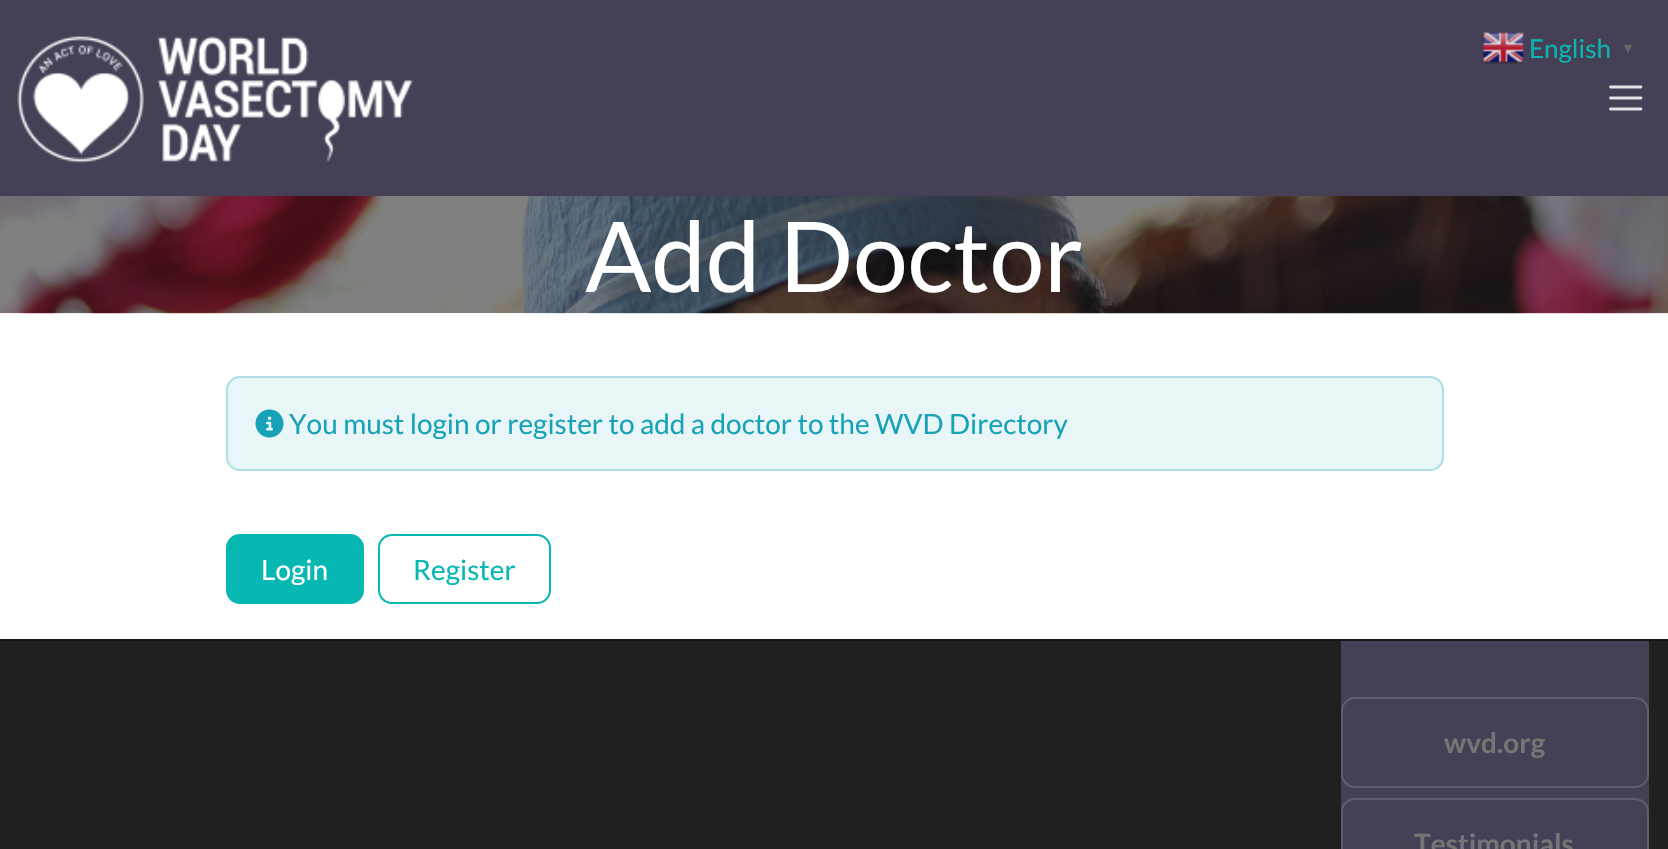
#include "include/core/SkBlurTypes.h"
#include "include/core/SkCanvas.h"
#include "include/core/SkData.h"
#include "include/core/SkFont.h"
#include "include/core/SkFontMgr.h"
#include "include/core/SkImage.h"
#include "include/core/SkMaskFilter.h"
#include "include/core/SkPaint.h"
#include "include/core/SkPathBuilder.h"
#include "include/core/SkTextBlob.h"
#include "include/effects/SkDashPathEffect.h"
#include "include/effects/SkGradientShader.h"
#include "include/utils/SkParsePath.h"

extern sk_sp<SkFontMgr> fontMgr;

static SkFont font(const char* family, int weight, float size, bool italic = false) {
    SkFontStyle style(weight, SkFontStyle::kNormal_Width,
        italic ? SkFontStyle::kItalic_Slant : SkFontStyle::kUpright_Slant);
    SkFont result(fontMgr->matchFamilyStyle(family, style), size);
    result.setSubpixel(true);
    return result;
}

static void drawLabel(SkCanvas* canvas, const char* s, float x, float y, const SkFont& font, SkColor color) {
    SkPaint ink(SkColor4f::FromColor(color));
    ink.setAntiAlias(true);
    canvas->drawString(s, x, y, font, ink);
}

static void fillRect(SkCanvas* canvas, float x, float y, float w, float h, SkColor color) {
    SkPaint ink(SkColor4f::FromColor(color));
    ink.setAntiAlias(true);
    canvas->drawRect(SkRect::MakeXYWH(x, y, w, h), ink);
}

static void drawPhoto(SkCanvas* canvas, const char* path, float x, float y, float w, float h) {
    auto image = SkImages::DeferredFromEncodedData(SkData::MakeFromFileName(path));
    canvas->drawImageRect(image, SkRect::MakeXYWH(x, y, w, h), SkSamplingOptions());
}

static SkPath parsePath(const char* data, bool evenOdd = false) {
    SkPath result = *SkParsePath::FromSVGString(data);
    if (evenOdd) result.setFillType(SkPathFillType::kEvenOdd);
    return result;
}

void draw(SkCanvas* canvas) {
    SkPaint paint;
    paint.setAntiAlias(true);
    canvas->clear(0xFFFFFFFF);
    fillRect(canvas, 0, 0, 1668, 196, 0xFF454056);
    drawPhoto(canvas, "assets/img1.png", 17, 36, 397, 127);
    paint.setStroke(true);
    paint.setStrokeWidth(2.8f);
    paint.setStrokeCap(SkPaint::kRound_Cap);
    paint.setColor(0xFFE3E2E6);
    canvas->drawPath(parsePath("M1610.5 87H1641M1610.5 98H1641M1610.5 109H1641"), paint);
    drawPhoto(canvas, "assets/img2.png", 1482, 32, 42, 32);
    SkFont font1 = font("Lato", 400, 26);
    drawLabel(canvas, "English", 1529, 58, font1, 0xFF07B8B2);
    SkFont font2 = font("Liberation Sans", 700, 14);
    drawLabel(canvas, "▼", 1621, 53, font2, 0xFF666666);
    drawPhoto(canvas, "assets/img3.png", 0, 196, 1668, 118);
    SkFont font3 = font("Lato", 400, 97.75f);
    drawLabel(canvas, "Add Doctor", 585, 292, font3, 0xFFFFFFFF);
    paint.setStroke(false);
    paint.setColor(0xFFE8F6F8);
    canvas->drawRoundRect(SkRect::MakeXYWH(227, 377, 1216, 93), 13, 13, paint);
    paint.setStroke(true);
    paint.setStrokeWidth(2);
    paint.setStrokeCap(SkPaint::kButt_Cap);
    paint.setColor(0xFFAEDEE6);
    canvas->drawRoundRect(SkRect::MakeXYWH(227, 377, 1216, 93), 13, 13, paint);
    drawPhoto(canvas, "assets/img4.png", 255, 409, 29, 29);
    SkFont font4 = font("Lato", 400, 28);
    drawLabel(canvas, "You must login or register to add a doctor to the WVD Directory", 289, 434, font4, 0xFF17A2B8);
    paint.setStroke(false);
    paint.setColor(0xFF07B8B2);
    canvas->drawRoundRect(SkRect::MakeXYWH(227, 535, 136, 68), 13, 13, paint);
    paint.setStroke(true);
    canvas->drawRoundRect(SkRect::MakeXYWH(227, 535, 136, 68), 13, 13, paint);
    drawLabel(canvas, "Login", 261, 580, font4, 0xFFFFFFFF);
    canvas->drawRoundRect(SkRect::MakeXYWH(379, 535, 171, 68), 13, 13, paint);
    drawLabel(canvas, "Register", 413, 580, font4, 0xFF07B8B2);
    fillRect(canvas, 0, 641, 1668, 208, 0xFF202020);
    fillRect(canvas, 0, 639, 1668, 2, 0xFF151515);
    fillRect(canvas, 1341, 641, 308, 208, 0xFF454056);
    paint.setColor(0xFF615D6F);
    canvas->drawRoundRect(SkRect::MakeXYWH(1342, 698, 306, 89), 13, 13, paint);
    SkFont font5 = font("Lato", 700, 28);
    drawLabel(canvas, "wvd.org", 1444, 753, font5, 0xFF757575);
    canvas->drawRoundRect(SkRect::MakeXYWH(1342, 799, 306, 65), 13, 13, paint);
    drawLabel(canvas, "Testimonials", 1414, 854, font5, 0xFF757575);
}
